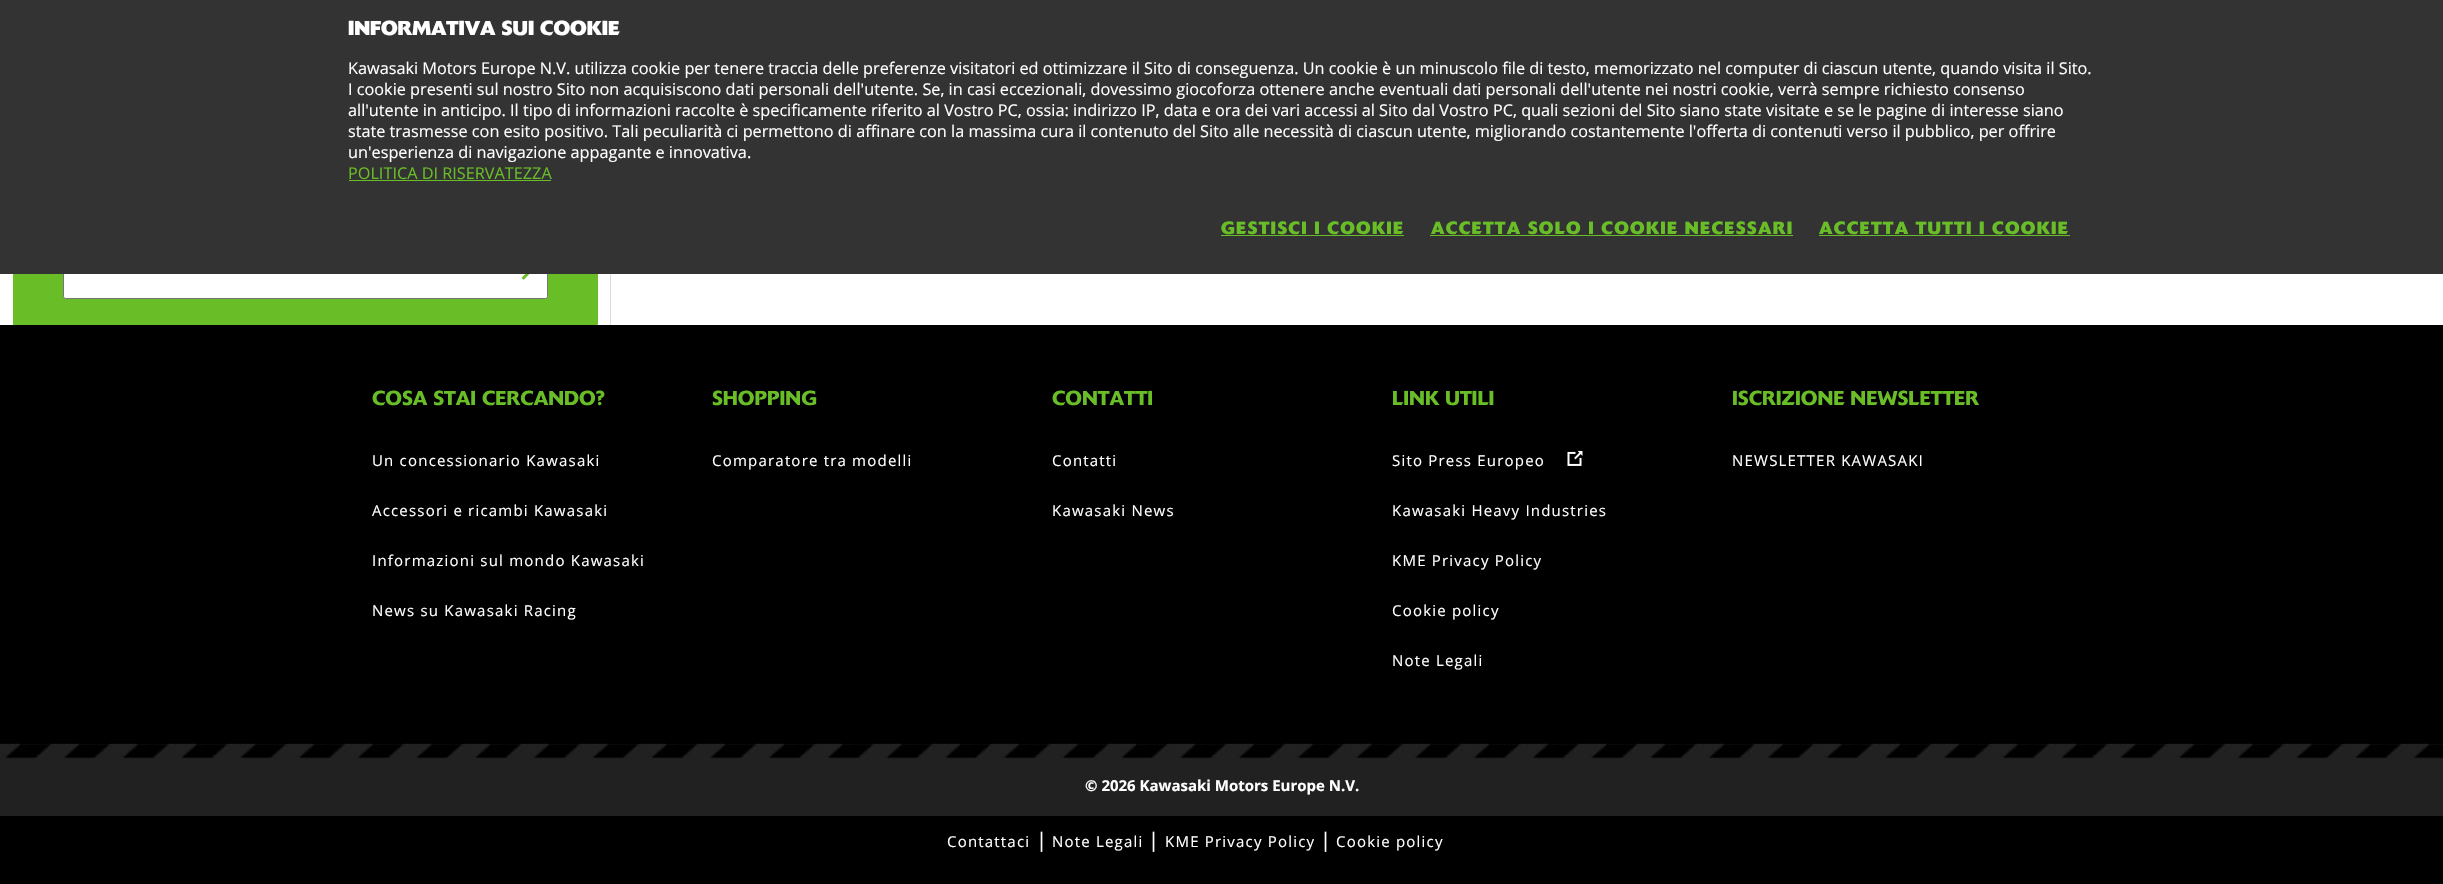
#include "include/core/SkBlurTypes.h"
#include "include/core/SkCanvas.h"
#include "include/core/SkData.h"
#include "include/core/SkFont.h"
#include "include/core/SkFontMgr.h"
#include "include/core/SkImage.h"
#include "include/core/SkMaskFilter.h"
#include "include/core/SkPaint.h"
#include "include/core/SkPathBuilder.h"
#include "include/core/SkTextBlob.h"
#include "include/effects/SkDashPathEffect.h"
#include "include/effects/SkGradientShader.h"
#include "include/utils/SkParsePath.h"

extern sk_sp<SkFontMgr> fontMgr;

static SkFont font(const char* family, int weight, float size, bool italic = false) {
    SkFontStyle style(weight, SkFontStyle::kNormal_Width,
        italic ? SkFontStyle::kItalic_Slant : SkFontStyle::kUpright_Slant);
    SkFont result(fontMgr->matchFamilyStyle(family, style), size);
    result.setSubpixel(true);
    return result;
}

static void drawLabel(SkCanvas* canvas, const char* s, float x, float y, const SkFont& font, SkColor color) {
    SkPaint ink(SkColor4f::FromColor(color));
    ink.setAntiAlias(true);
    canvas->drawString(s, x, y, font, ink);
}

static void drawTracked(SkCanvas* canvas, const char* s, float x, float y, const SkFont& font, const SkPaint& ink, float letter, float word) {
    std::vector<SkGlyphID> glyphs(font.countText(s, strlen(s), SkTextEncoding::kUTF8));
    std::vector<float> xs(glyphs.size());
    font.textToGlyphs(s, strlen(s), SkTextEncoding::kUTF8, glyphs);
    font.getXPos(glyphs, xs, x);
    float extra = 0;
    for (size_t i = 0; i < glyphs.size(); i++) {
        xs[i] += extra;
        extra += letter + word * (glyphs[i] == font.unicharToGlyph(' '));
    }
    canvas->drawTextBlob(SkTextBlob::MakeFromPosHGlyphs(glyphs, xs, y, font), 0, 0, ink);
}

static void fillRect(SkCanvas* canvas, float x, float y, float w, float h, SkColor color) {
    SkPaint ink(SkColor4f::FromColor(color));
    ink.setAntiAlias(true);
    canvas->drawRect(SkRect::MakeXYWH(x, y, w, h), ink);
}

static void drawPhoto(SkCanvas* canvas, const char* path, float x, float y, float w, float h) {
    auto image = SkImages::DeferredFromEncodedData(SkData::MakeFromFileName(path));
    canvas->drawImageRect(image, SkRect::MakeXYWH(x, y, w, h), SkSamplingOptions());
}

void draw(SkCanvas* canvas) {
    SkPaint paint;
    paint.setAntiAlias(true);
    canvas->clear(0xFF000000);
    fillRect(canvas, 0, 274, 2443, 51, 0xFFFFFFFF);
    fillRect(canvas, 13, 274, 585, 51, 0xFF69BE28);
    paint.setColor(0xFFFFFFFF);
    canvas->drawRoundRect(SkRect::MakeXYWH(63.5f, 243.5f, 484, 55), 2, 2, paint);
    paint.setStroke(true);
    paint.setStrokeWidth(1);
    paint.setColor(0xFF767676);
    canvas->drawRoundRect(SkRect::MakeXYWH(63.5f, 243.5f, 484, 55), 2, 2, paint);
    fillRect(canvas, 0, 0, 2443, 274, 0xFF333333);
    SkFont font1 = font("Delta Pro", 700, 20);
    drawLabel(canvas, "INFORMATIVA SUI COOKIE", 348, 35, font1, 0xFFFFFFFF);
    SkFont font2 = font("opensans", 400, 16.25f);
    drawLabel(canvas, "Kawasaki Motors Europe N.V. utilizza cookie per tenere traccia delle preferenze visitatori ed ottimizzare il Sito di conseguenza. Un cookie è un minuscolo file di testo, memorizzato nel computer di ciascun utente, quando visita il Sito.", 348, 74, font2, 0xFFFFFFFF);
    drawLabel(canvas, "I cookie presenti sul nostro Sito non acquisiscono dati personali dell'utente. Se, in casi eccezionali, dovessimo giocoforza ottenere anche eventuali dati personali dell'utente nei nostri cookie, verrà sempre richiesto consenso", 348, 95, font2, 0xFFFFFFFF);
    drawLabel(canvas, "all'utente in anticipo. Il tipo di informazioni raccolte è specificamente riferito al Vostro PC, ossia: indirizzo IP, data e ora dei vari accessi al Sito dal Vostro PC, quali sezioni del Sito siano state visitate e se le pagine di interesse siano", 348, 116, font2, 0xFFFFFFFF);
    drawLabel(canvas, "state trasmesse con esito positivo. Tali peculiarità ci permettono di affinare con la massima cura il contenuto del Sito alle necessità di ciascun utente, migliorando costantemente l'offerta di contenuti verso il pubblico, per offrire", 348, 137, font2, 0xFFFFFFFF);
    drawLabel(canvas, "un'esperienza di navigazione appagante e innovativa.", 348, 158, font2, 0xFFFFFFFF);
    drawLabel(canvas, "POLITICA DI RISERVATEZZA", 348, 179, font2, 0xFF69BE28);
    fillRect(canvas, 349, 180, 202, 1, 0xFF69BE28);
    SkFont font3 = font("Delta Pro", 700, 17.5f);
    paint.setStroke(false);
    paint.setColor(0xFF69BE28);
    drawTracked(canvas, "GESTISCI I COOKIE", 1221, 234, font3, paint, 1.25f, 0);
    fillRect(canvas, 1221, 235, 183, 1, 0xFF69BE28);
    drawTracked(canvas, "ACCETTA SOLO I COOKIE NECESSARI", 1431, 234, font3, paint, 1.25f, 0);
    fillRect(canvas, 1430, 235, 363, 1, 0xFF69BE28);
    drawTracked(canvas, "ACCETTA TUTTI I COOKIE", 1819, 234, font3, paint, 1.25f, 0);
    fillRect(canvas, 1819, 235, 251, 1, 0xFF69BE28);
    fillRect(canvas, 610, 274, 1, 51, 0xFFDBDBDB);
    drawPhoto(canvas, "assets/img1.png", 521, 274, 9, 6);
    SkFont font4 = font("Delta Pro", 500, 20);
    drawLabel(canvas, "COSA STAI CERCANDO?", 372, 405, font4, 0xFF69BE28);
    SkFont font5 = font("opensans", 400, 15);
    paint.setColor(0xFFFFFFFF);
    drawTracked(canvas, "Un concessionario Kawasaki", 372, 466, font5, paint, 1.2f, 0);
    drawTracked(canvas, "Accessori e ricambi Kawasaki", 372, 516, font5, paint, 1.2f, 0);
    drawTracked(canvas, "Informazioni sul mondo Kawasaki", 372, 566, font5, paint, 1.2f, 0);
    drawTracked(canvas, "News su Kawasaki Racing", 372, 616, font5, paint, 1.2f, 0);
    drawLabel(canvas, "SHOPPING", 712, 405, font4, 0xFF69BE28);
    drawTracked(canvas, "Comparatore tra modelli", 712, 466, font5, paint, 1.2f, 0);
    drawLabel(canvas, "CONTATTI", 1052, 405, font4, 0xFF69BE28);
    drawTracked(canvas, "Contatti", 1052, 466, font5, paint, 1.2f, 0);
    drawTracked(canvas, "Kawasaki News", 1052, 516, font5, paint, 1.2f, 0);
    drawLabel(canvas, "LINK UTILI", 1392, 405, font4, 0xFF69BE28);
    drawTracked(canvas, "Sito Press Europeo", 1392, 466, font5, paint, 1.2f, 0);
    drawPhoto(canvas, "assets/img2.png", 1567, 450, 16, 16);
    drawTracked(canvas, "Kawasaki Heavy Industries", 1392, 516, font5, paint, 1.2f, 0);
    drawTracked(canvas, "KME Privacy Policy", 1392, 566, font5, paint, 1.2f, 0);
    drawTracked(canvas, "Cookie policy", 1392, 616, font5, paint, 1.2f, 0);
    drawTracked(canvas, "Note Legali", 1392, 666, font5, paint, 1.2f, 0);
    drawLabel(canvas, "ISCRIZIONE NEWSLETTER", 1732, 405, font4, 0xFF69BE28);
    drawTracked(canvas, "NEWSLETTER KAWASAKI", 1732, 466, font5, paint, 1.2f, 0);
    fillRect(canvas, 0, 744, 2443, 72, 0xFF212121);
    drawPhoto(canvas, "assets/img3.png", 0, 743, 2443, 16);
    SkFont font6 = font("opensans", 700, 15);
    drawLabel(canvas, "© 2026 Kawasaki Motors Europe N.V.", 1085, 791, font6, 0xFFFFFFFF);
    drawTracked(canvas, "Contattaci", 947, 847, font5, paint, 1.2f, 0);
    SkFont font7 = font("opensans", 400, 20);
    drawLabel(canvas, "|", 1036, 847, font7, 0xFFFFFFFF);
    drawTracked(canvas, "Note Legali", 1052, 847, font5, paint, 1.2f, 0);
    drawLabel(canvas, "|", 1148, 847, font7, 0xFFFFFFFF);
    drawTracked(canvas, "KME Privacy Policy", 1165, 847, font5, paint, 1.2f, 0);
    drawLabel(canvas, "|", 1320, 847, font7, 0xFFFFFFFF);
    drawTracked(canvas, "Cookie policy", 1336, 847, font5, paint, 1.2f, 0);
}
